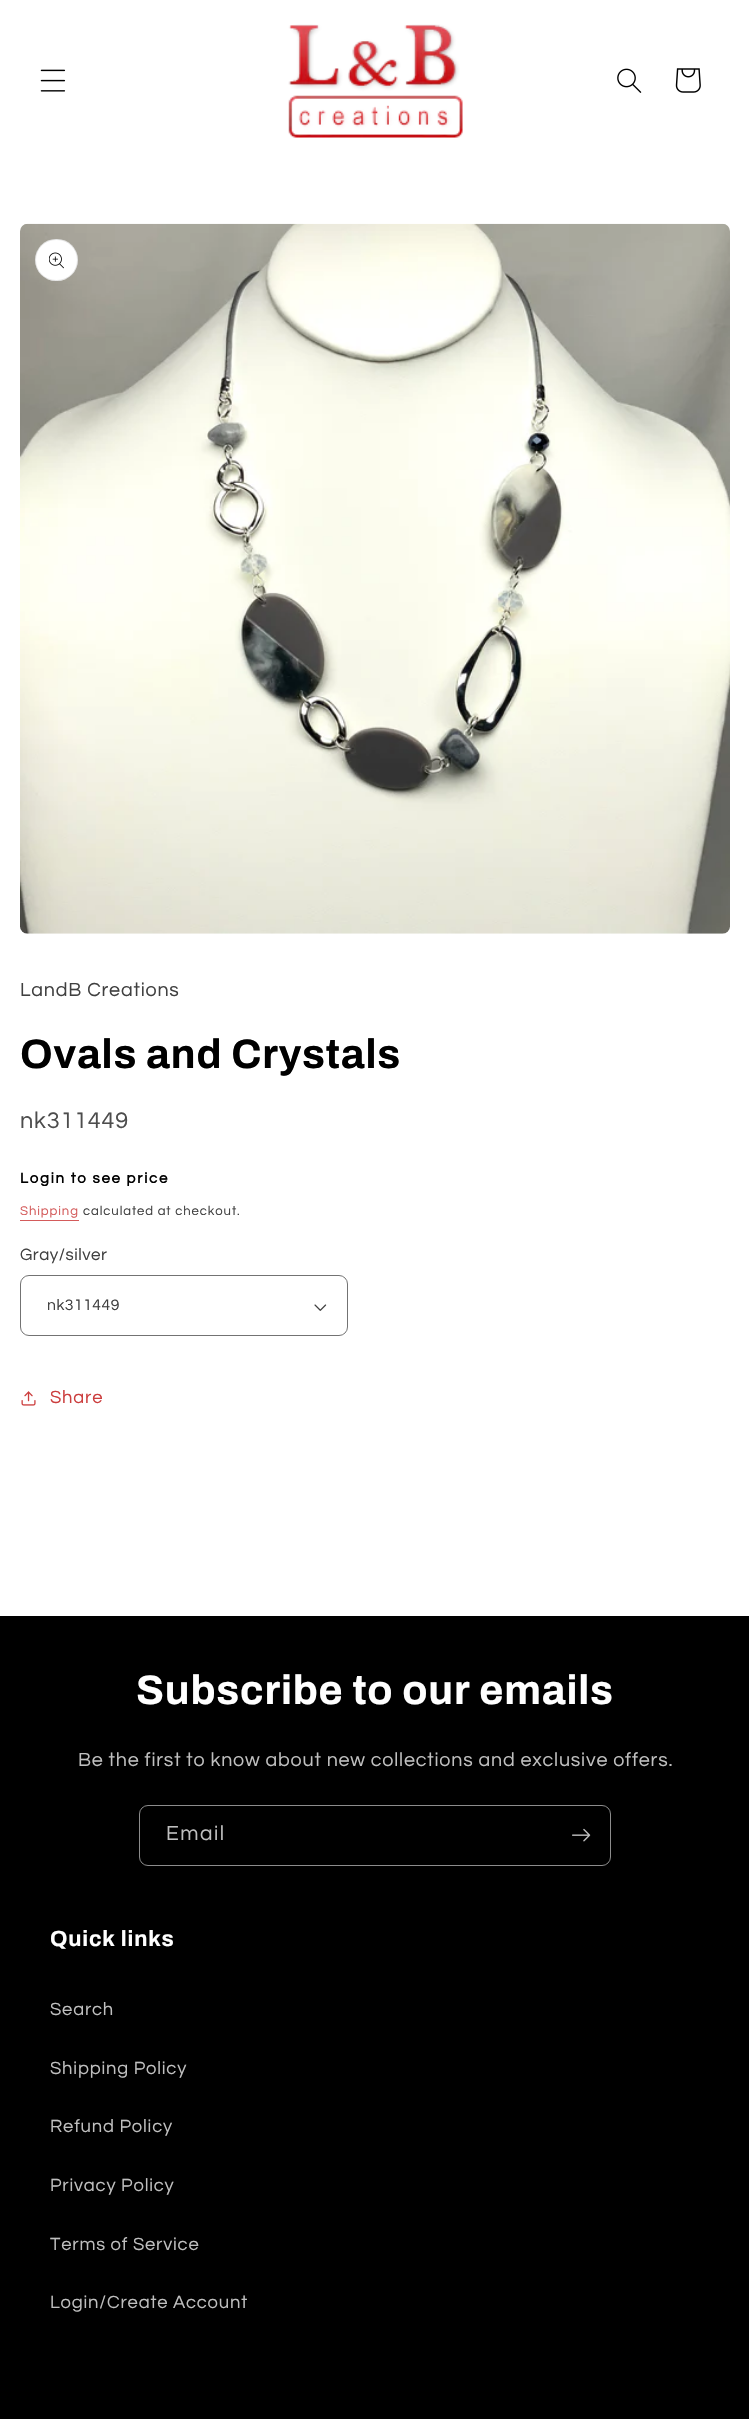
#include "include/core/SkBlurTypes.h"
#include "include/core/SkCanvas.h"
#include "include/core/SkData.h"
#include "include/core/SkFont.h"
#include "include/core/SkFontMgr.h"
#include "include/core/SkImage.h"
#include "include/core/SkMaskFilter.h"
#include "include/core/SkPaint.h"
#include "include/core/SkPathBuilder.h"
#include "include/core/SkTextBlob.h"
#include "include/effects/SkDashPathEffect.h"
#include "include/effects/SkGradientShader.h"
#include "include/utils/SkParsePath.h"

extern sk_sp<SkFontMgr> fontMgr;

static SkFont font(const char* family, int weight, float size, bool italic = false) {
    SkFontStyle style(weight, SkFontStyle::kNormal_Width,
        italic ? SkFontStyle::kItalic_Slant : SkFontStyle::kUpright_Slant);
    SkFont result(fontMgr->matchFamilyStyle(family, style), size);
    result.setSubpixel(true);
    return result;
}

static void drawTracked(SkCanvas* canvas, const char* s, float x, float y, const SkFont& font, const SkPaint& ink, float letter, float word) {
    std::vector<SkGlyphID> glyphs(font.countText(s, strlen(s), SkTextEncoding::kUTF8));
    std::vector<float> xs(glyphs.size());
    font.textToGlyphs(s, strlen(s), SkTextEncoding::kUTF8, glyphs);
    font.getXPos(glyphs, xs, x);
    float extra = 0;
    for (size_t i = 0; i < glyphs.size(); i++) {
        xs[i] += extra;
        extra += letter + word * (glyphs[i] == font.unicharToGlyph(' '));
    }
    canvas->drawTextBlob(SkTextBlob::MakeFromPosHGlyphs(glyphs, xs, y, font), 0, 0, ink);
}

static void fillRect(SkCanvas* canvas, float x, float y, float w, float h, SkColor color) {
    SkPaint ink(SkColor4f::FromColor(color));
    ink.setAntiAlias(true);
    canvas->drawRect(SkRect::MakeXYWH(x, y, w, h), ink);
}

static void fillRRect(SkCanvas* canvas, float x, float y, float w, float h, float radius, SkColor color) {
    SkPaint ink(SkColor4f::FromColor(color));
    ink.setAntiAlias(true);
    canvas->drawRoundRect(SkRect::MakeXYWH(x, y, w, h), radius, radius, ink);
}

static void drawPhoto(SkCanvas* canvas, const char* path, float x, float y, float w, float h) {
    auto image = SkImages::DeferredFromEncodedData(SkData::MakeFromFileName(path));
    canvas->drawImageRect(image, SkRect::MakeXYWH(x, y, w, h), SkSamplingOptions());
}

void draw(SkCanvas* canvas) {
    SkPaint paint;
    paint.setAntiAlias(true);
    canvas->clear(0xFFFFFFFF);
    drawPhoto(canvas, "assets/img1.png", 40, 69, 26, 23);
    drawPhoto(canvas, "assets/img2.png", 288, 24, 175, 114);
    drawPhoto(canvas, "assets/img3.png", 617, 68, 25, 25);
    drawPhoto(canvas, "assets/img4.png", 675, 68, 26, 25);
    drawPhoto(canvas, "assets/img5.png", 20, 223, 710, 711);
    fillRRect(canvas, 35, 239, 43, 42, 21, 0xFFFFFFFF);
    paint.setStroke(true);
    paint.setStrokeWidth(1);
    paint.setColor(0x1A000000);
    canvas->drawRoundRect(SkRect::MakeXYWH(35.5f, 239.5f, 42, 41), 20.5f, 20.5f, paint);
    drawPhoto(canvas, "assets/img6.png", 49, 252, 15, 17);
    SkFont font1 = font("Questrial", 400, 19.7f);
    paint.setStroke(false);
    paint.setColor(0xFF404040);
    drawTracked(canvas, "LandB Creations", 20, 996, font1, paint, 0.8f, 0);
    SkFont font2 = font("Archivo", 700, 41.25f);
    paint.setColor(0xFF000000);
    drawTracked(canvas, "Ovals and Crystals", 20, 1068, font2, paint, 0.8f, 0);
    SkFont font3 = font("Questrial", 400, 23.5f);
    paint.setColor(0xFF4D4D4D);
    drawTracked(canvas, "nk311449", 20, 1128, font3, paint, 0.8f, 0);
    SkFont font4 = font("Questrial", 700, 15);
    paint.setColor(0xFF000000);
    drawTracked(canvas, "Login to see price", 20, 1183, font4, paint, 1.75f, 0);
    SkFont font5 = font("Questrial", 400, 13.1f);
    paint.setColor(0xFFD45B5B);
    drawTracked(canvas, "Shipping", 20, 1215, font5, paint, 0.9f, 0);
    fillRect(canvas, 20, 1220, 59, 1, 0xFFD45B5B);
    paint.setColor(0xFF404040);
    drawTracked(canvas, "calculated at checkout.", 83, 1215, font5, paint, 0.9f, 0);
    SkFont font6 = font("Questrial", 400, 17);
    drawTracked(canvas, "Gray/silver", 20, 1260, font6, paint, 0.5f, 0);
    drawPhoto(canvas, "assets/img7.png", 314, 1304, 13, 7);
    paint.setStroke(true);
    paint.setColor(0xFF737373);
    canvas->drawRoundRect(SkRect::MakeXYWH(20.5f, 1275.5f, 327, 60), 8.5f, 8.5f, paint);
    SkFont font7 = font("Questrial", 400, 15.75f);
    paint.setStroke(false);
    paint.setColor(0xFF404040);
    drawTracked(canvas, "nk311449", 47, 1310, font7, paint, 0.5f, 0);
    drawPhoto(canvas, "assets/img8.png", 21, 1391, 15, 15);
    SkFont font8 = font("Questrial", 400, 18.4f);
    paint.setColor(0xFFCC3E3E);
    drawTracked(canvas, "Share", 50, 1403, font8, paint, 0.8f, 0);
    fillRect(canvas, 0, 1616, 749, 803, 0xFF000000);
    paint.setColor(0xFFFFFFFF);
    drawTracked(canvas, "Subscribe to our emails", 136, 1704, font2, paint, 0.8f, 0);
    paint.setColor(0xFFBFBFBF);
    drawTracked(canvas, "Be the first to know about new collections and exclusive offers.", 78, 1766, font1, paint, 0.8f, 0);
    paint.setStroke(true);
    paint.setColor(0xFF8C8C8C);
    canvas->drawRoundRect(SkRect::MakeXYWH(139.5f, 1805.5f, 471, 60), 8.5f, 8.5f, paint);
    SkFont font9 = font("Questrial", 400, 21);
    paint.setStroke(false);
    paint.setColor(0xFFBFBFBF);
    drawTracked(canvas, "Email", 166, 1840, font9, paint, 1.5f, 0);
    drawPhoto(canvas, "assets/img9.png", 572, 1828, 19, 14);
    SkFont font10 = font("Archivo", 700, 22);
    paint.setColor(0xFFFFFFFF);
    drawTracked(canvas, "Quick links", 50, 1946, font10, paint, 0.8f, 0);
    paint.setColor(0xFFBFBFBF);
    drawTracked(canvas, "Search", 50, 2015, font8, paint, 0.8f, 0);
    drawTracked(canvas, "Shipping Policy", 50, 2074, font8, paint, 0.8f, 0);
    drawTracked(canvas, "Refund Policy", 50, 2132, font8, paint, 0.8f, 0);
    drawTracked(canvas, "Privacy Policy", 50, 2191, font8, paint, 0.8f, 0);
    drawTracked(canvas, "Terms of Service", 50, 2250, font8, paint, 0.8f, 0);
    drawTracked(canvas, "Login/Create Account", 50, 2308, font8, paint, 0.8f, 0);
}
